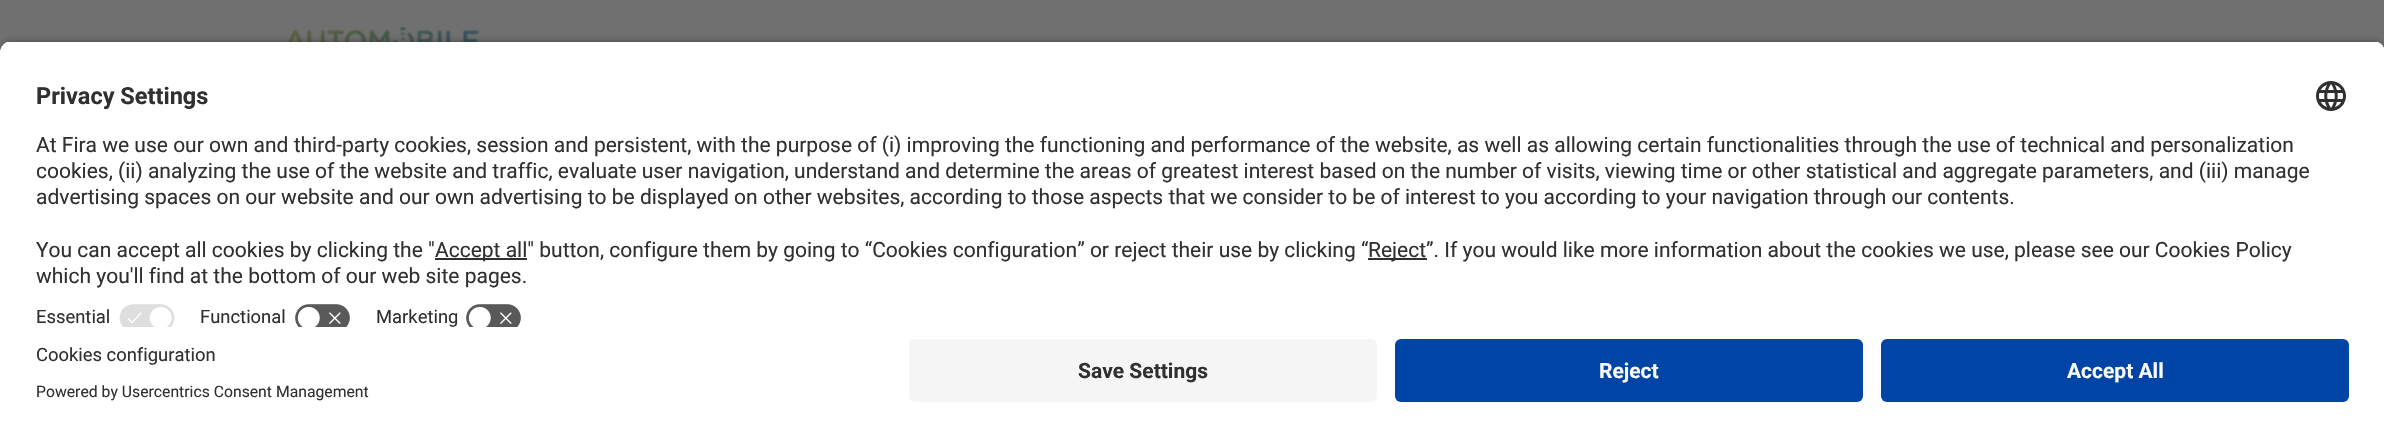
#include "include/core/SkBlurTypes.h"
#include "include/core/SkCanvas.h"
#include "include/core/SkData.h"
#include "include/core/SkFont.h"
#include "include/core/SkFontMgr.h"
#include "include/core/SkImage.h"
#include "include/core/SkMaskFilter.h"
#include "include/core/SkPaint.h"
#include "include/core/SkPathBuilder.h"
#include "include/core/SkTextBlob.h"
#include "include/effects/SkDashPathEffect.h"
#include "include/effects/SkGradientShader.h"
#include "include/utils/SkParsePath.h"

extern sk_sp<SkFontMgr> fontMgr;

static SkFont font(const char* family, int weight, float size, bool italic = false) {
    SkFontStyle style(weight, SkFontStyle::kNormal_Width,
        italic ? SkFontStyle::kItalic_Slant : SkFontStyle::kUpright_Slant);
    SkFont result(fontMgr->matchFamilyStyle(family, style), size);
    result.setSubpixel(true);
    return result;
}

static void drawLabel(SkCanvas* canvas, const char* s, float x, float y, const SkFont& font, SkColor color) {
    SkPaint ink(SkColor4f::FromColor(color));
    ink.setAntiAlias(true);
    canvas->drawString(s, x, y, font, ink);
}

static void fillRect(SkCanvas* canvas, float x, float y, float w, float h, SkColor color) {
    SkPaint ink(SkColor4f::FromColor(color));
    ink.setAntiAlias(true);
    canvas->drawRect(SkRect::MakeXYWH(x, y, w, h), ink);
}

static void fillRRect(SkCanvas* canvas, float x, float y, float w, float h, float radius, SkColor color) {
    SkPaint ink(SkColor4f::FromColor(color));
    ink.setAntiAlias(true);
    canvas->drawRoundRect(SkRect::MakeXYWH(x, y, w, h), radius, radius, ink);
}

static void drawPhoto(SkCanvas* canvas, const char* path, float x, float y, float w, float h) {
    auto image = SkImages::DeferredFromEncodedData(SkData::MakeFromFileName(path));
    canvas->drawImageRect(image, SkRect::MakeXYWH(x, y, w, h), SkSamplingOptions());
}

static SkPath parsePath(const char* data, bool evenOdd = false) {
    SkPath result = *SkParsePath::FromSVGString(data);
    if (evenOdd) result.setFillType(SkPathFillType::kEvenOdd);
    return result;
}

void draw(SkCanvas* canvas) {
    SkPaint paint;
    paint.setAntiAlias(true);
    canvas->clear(0xFF707070);
    drawPhoto(canvas, "assets/img1.png", 287, 26, 193, 16);
    paint.setColor(0xCC000000);
    paint.setMaskFilter(SkMaskFilter::MakeBlur(kNormal_SkBlurStyle, 5));
    canvas->drawRoundRect(SkRect::MakeXYWH(0, 45, 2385, 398), 12, 12, paint);
    paint.setMaskFilter(nullptr);
    canvas->save();
    canvas->clipPath(parsePath("M12 41H2373C2379.5 41 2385 46.5 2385 53V327H0V53C0 46.5 5.5 41 12 41Z"), true);
    fillRect(canvas, 0, 42, 2384, 285, 0xFFFFFFFF);
    fillRect(canvas, 0, 42, 2384, 254, 0xFFFFFFFF);
    canvas->restore();
    SkFont font1 = font("Roboto", 700, 23.5f);
    drawLabel(canvas, "Privacy Settings", 36, 104, font1, 0xFF303030);
    drawPhoto(canvas, "assets/img2.png", 2316, 81, 30, 30);
    SkFont font2 = font("Roboto", 400, 21);
    drawLabel(canvas, "At Fira we use our own and third-party cookies, session and persistent, with the purpose of (i) improving the functioning and performance of the website, as well as allowing certain functionalities through the use of technical and personalization", 36, 152, font2, 0xFF303030);
    drawLabel(canvas, "cookies, (ii) analyzing the use of the website and traffic, evaluate user navigation, understand and determine the areas of greatest interest based on the number of visits, viewing time or other statistical and aggregate parameters, and (iii) manage", 36, 178, font2, 0xFF303030);
    drawLabel(canvas, "advertising spaces on our website and our own advertising to be displayed on other websites, according to those aspects that we consider to be of interest to you according to your navigation through our contents.", 36, 204, font2, 0xFF303030);
    drawLabel(canvas, "You can accept all cookies by clicking the \"", 36, 257, font2, 0xFF303030);
    fillRect(canvas, 435, 258, 92, 2, 0xFF303030);
    drawLabel(canvas, "Accept all\" button, configure them by going to “Cookies configuration” or reject their use by clicking “", 435, 257, font2, 0xFF303030);
    fillRect(canvas, 1368, 258, 59, 2, 0xFF303030);
    drawLabel(canvas, "Reject”. If you would like more information about the cookies we use, please see our Cookies Policy", 1368, 257, font2, 0xFF303030);
    drawLabel(canvas, "which you'll find at the bottom of our web site pages.", 36, 283, font2, 0xFF303030);
    SkFont font3 = font("Roboto", 400, 18.4f);
    drawLabel(canvas, "Essential", 36, 323, font3, 0xFF303030);
    drawPhoto(canvas, "assets/img3.png", 119, 304, 56, 23);
    drawLabel(canvas, "Functional", 200, 323, font3, 0xFF303030);
    drawPhoto(canvas, "assets/img4.png", 295, 304, 55, 23);
    drawLabel(canvas, "Marketing", 376, 323, font3, 0xFF303030);
    drawPhoto(canvas, "assets/img4.png", 466, 304, 55, 23);
    fillRect(canvas, 0, 327, 2384, 111, 0xFFFFFFFF);
    drawLabel(canvas, "Cookies configuration", 36, 361, font3, 0xFF303030);
    SkFont font4 = font("Roboto", 400, 15.75f);
    drawLabel(canvas, "Powered by Usercentrics Consent Management", 36, 397, font4, 0xFF303030);
    fillRRect(canvas, 909, 339, 468, 63, 6, 0xFFF5F5F5);
    SkFont font5 = font("Roboto", 700, 21);
    drawLabel(canvas, "Save Settings", 1078, 378, font5, 0xFF303030);
    fillRRect(canvas, 1395, 339, 468, 63, 6, 0xFF0045A5);
    drawLabel(canvas, "Reject", 1599, 378, font5, 0xFFFAFAFA);
    fillRRect(canvas, 1881, 339, 468, 63, 6, 0xFF0045A5);
    drawLabel(canvas, "Accept All", 2067, 378, font5, 0xFFFAFAFA);
}
